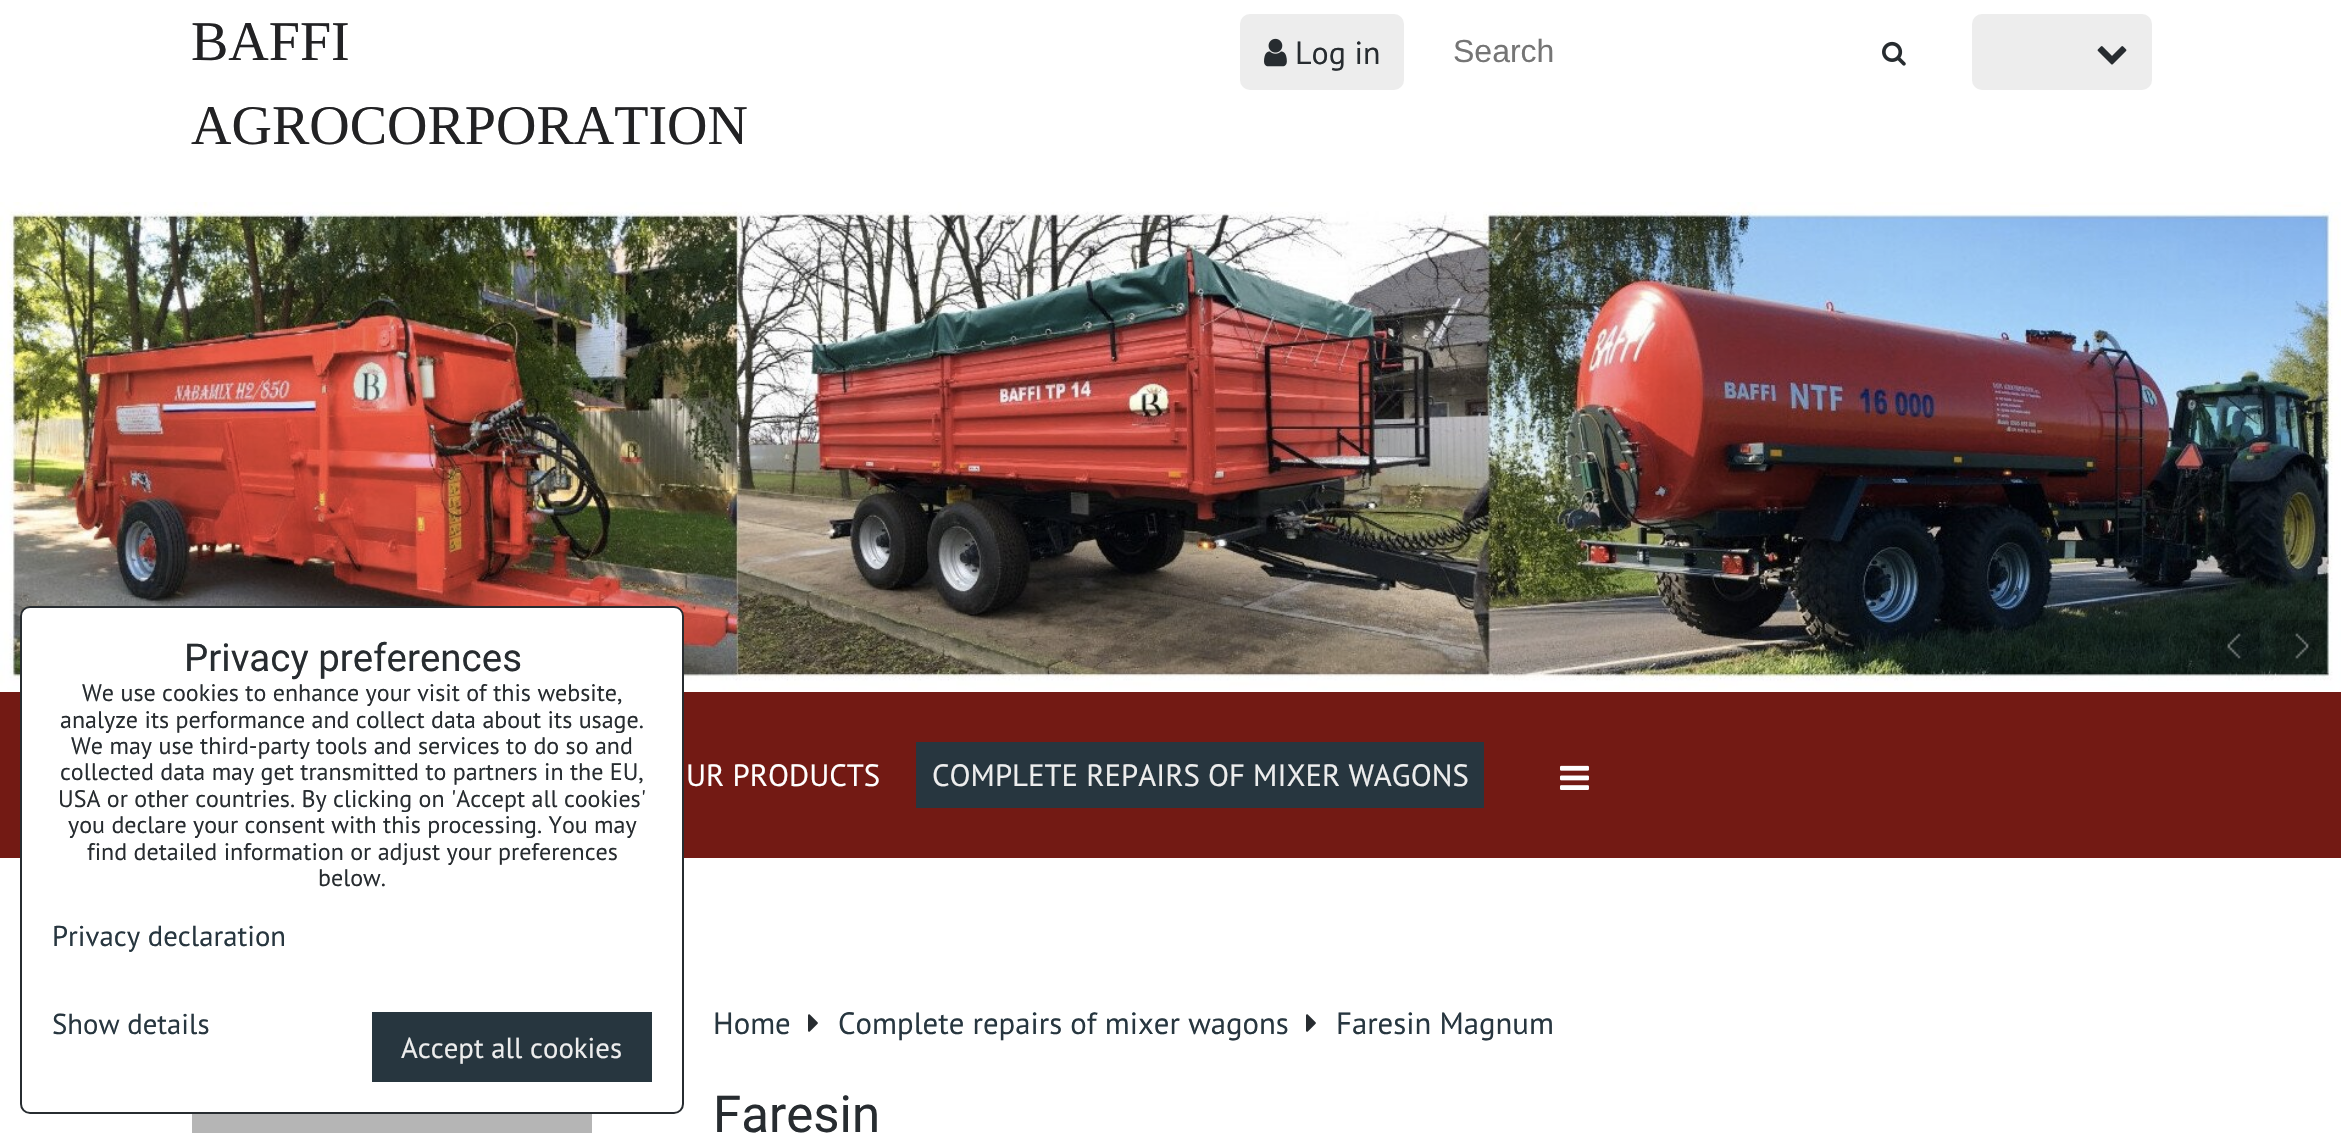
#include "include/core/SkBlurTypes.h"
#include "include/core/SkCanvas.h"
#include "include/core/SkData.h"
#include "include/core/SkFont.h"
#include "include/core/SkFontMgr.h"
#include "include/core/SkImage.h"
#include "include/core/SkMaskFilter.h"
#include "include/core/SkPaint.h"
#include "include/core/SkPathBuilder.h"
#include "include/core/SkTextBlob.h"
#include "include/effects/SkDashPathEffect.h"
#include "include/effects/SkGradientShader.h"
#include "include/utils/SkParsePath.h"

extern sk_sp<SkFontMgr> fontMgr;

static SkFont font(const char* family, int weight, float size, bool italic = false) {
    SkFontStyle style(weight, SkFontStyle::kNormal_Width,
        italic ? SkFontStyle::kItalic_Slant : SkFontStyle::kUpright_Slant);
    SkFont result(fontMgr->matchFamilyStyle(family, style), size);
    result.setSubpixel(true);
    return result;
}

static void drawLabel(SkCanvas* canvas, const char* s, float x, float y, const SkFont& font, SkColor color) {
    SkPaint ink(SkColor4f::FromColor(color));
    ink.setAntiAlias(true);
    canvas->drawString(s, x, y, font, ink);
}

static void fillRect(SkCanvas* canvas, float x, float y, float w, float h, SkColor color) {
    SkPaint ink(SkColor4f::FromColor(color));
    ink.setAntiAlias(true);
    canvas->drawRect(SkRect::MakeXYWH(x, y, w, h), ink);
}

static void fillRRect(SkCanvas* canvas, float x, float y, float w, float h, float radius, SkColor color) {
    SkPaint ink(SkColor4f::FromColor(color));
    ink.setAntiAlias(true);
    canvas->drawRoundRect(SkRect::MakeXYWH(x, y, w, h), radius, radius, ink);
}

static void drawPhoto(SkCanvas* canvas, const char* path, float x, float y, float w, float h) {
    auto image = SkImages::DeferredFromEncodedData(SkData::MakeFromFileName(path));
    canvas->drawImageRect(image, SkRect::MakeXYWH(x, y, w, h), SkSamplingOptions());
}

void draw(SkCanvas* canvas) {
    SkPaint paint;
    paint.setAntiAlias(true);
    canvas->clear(0xFFFFFFFF);
    SkFont font1 = font("Liberation Serif", 400, 56);
    drawLabel(canvas, "BAFFI", 191, 60, font1, 0xFF222224);
    drawLabel(canvas, "AGROCORPORATION", 191, 144, font1, 0xFF222224);
    fillRRect(canvas, 1240, 14, 164, 76, 10, 0xFFEDEDED);
    drawPhoto(canvas, "assets/img1.png", 1264, 38, 23, 29);
    SkFont font2 = font("PT Sans", 400, 32);
    drawLabel(canvas, "Log in", 1295, 64, font2, 0xFF272C30);
    SkFont font3 = font("Liberation Sans", 400, 32);
    drawLabel(canvas, "Search", 1453, 62, font3, 0xFF757575);
    drawPhoto(canvas, "assets/img2.png", 1882, 41, 24, 25);
    fillRRect(canvas, 1972, 14, 180, 76, 10, 0xFFEDEDED);
    drawPhoto(canvas, "assets/img3.png", 2097, 46, 30, 19);
    drawPhoto(canvas, "assets/img4.png", 0, 202, 2341, 488);
    fillRect(canvas, 2210, 620, 50, 50, 0x33000000);
    drawPhoto(canvas, "assets/img5.png", 2227, 633, 14, 26);
    fillRect(canvas, 2276, 620, 50, 50, 0x33000000);
    drawPhoto(canvas, "assets/img6.png", 2295, 633, 14, 26);
    fillRect(canvas, 0, 692, 2341, 166, 0xFF731A14);
    SkFont font4 = font("PT Sans", 400, 30.75f);
    drawLabel(canvas, "UR PRODUCTS", 686, 786, font4, 0xFFFFFFFF);
    fillRect(canvas, 916, 742, 568, 66, 0xFF27363F);
    drawLabel(canvas, "COMPLETE REPAIRS OF MIXER WAGONS", 932, 786, font4, 0xFFEDEDED);
    drawPhoto(canvas, "assets/img7.png", 1560, 765, 29, 25);
    fillRect(canvas, 192, 1114, 400, 19, 0xFFB5B5B5);
    drawLabel(canvas, "Home", 713, 1034, font4, 0xFF27363F);
    drawPhoto(canvas, "assets/img8.png", 808, 1014, 10, 18);
    drawLabel(canvas, "Complete repairs of mixer wagons", 838, 1034, font4, 0xFF27363F);
    drawPhoto(canvas, "assets/img8.png", 1306, 1014, 10, 18);
    drawLabel(canvas, "Faresin Magnum", 1336, 1034, font4, 0xFF27363F);
    SkFont font5 = font("Roboto", 400, 51);
    drawLabel(canvas, "Faresin", 713, 1132, font5, 0xFF272C30);
    paint.setColor(0xFFFFFFFF);
    canvas->drawRoundRect(SkRect::MakeXYWH(21, 607, 662, 506), 9, 9, paint);
    paint.setStroke(true);
    paint.setStrokeWidth(2);
    paint.setColor(0xFF272C30);
    canvas->drawRoundRect(SkRect::MakeXYWH(21, 607, 662, 506), 9, 9, paint);
    SkFont font6 = font("Roboto", 400, 38.5f);
    drawLabel(canvas, "Privacy preferences", 184, 671, font6, 0xFF272C30);
    SkFont font7 = font("PT Sans", 400, 24);
    drawLabel(canvas, "We use cookies to enhance your visit of this website,", 82, 701, font7, 0xFF272C30);
    drawLabel(canvas, "analyze its performance and collect data about its usage.", 60, 728, font7, 0xFF272C30);
    drawLabel(canvas, "We may use third-party tools and services to do so and", 71, 754, font7, 0xFF272C30);
    drawLabel(canvas, "collected data may get transmitted to partners in the EU,", 60, 780, font7, 0xFF272C30);
    drawLabel(canvas, "USA or other countries. By clicking on 'Accept all cookies'", 58, 807, font7, 0xFF272C30);
    drawLabel(canvas, "you declare your consent with this processing. You may", 68, 833, font7, 0xFF272C30);
    drawLabel(canvas, "find detailed information or adjust your preferences", 87, 860, font7, 0xFF272C30);
    drawLabel(canvas, "below.", 318, 886, font7, 0xFF272C30);
    SkFont font8 = font("PT Sans", 400, 28.75f);
    drawLabel(canvas, "Privacy declaration", 52, 946, font8, 0xFF27363F);
    drawLabel(canvas, "Show details", 52, 1034, font8, 0xFF27363F);
    fillRect(canvas, 372, 1012, 280, 70, 0xFF27363F);
    drawLabel(canvas, "Accept all cookies", 401, 1058, font8, 0xFFEDEDED);
}
